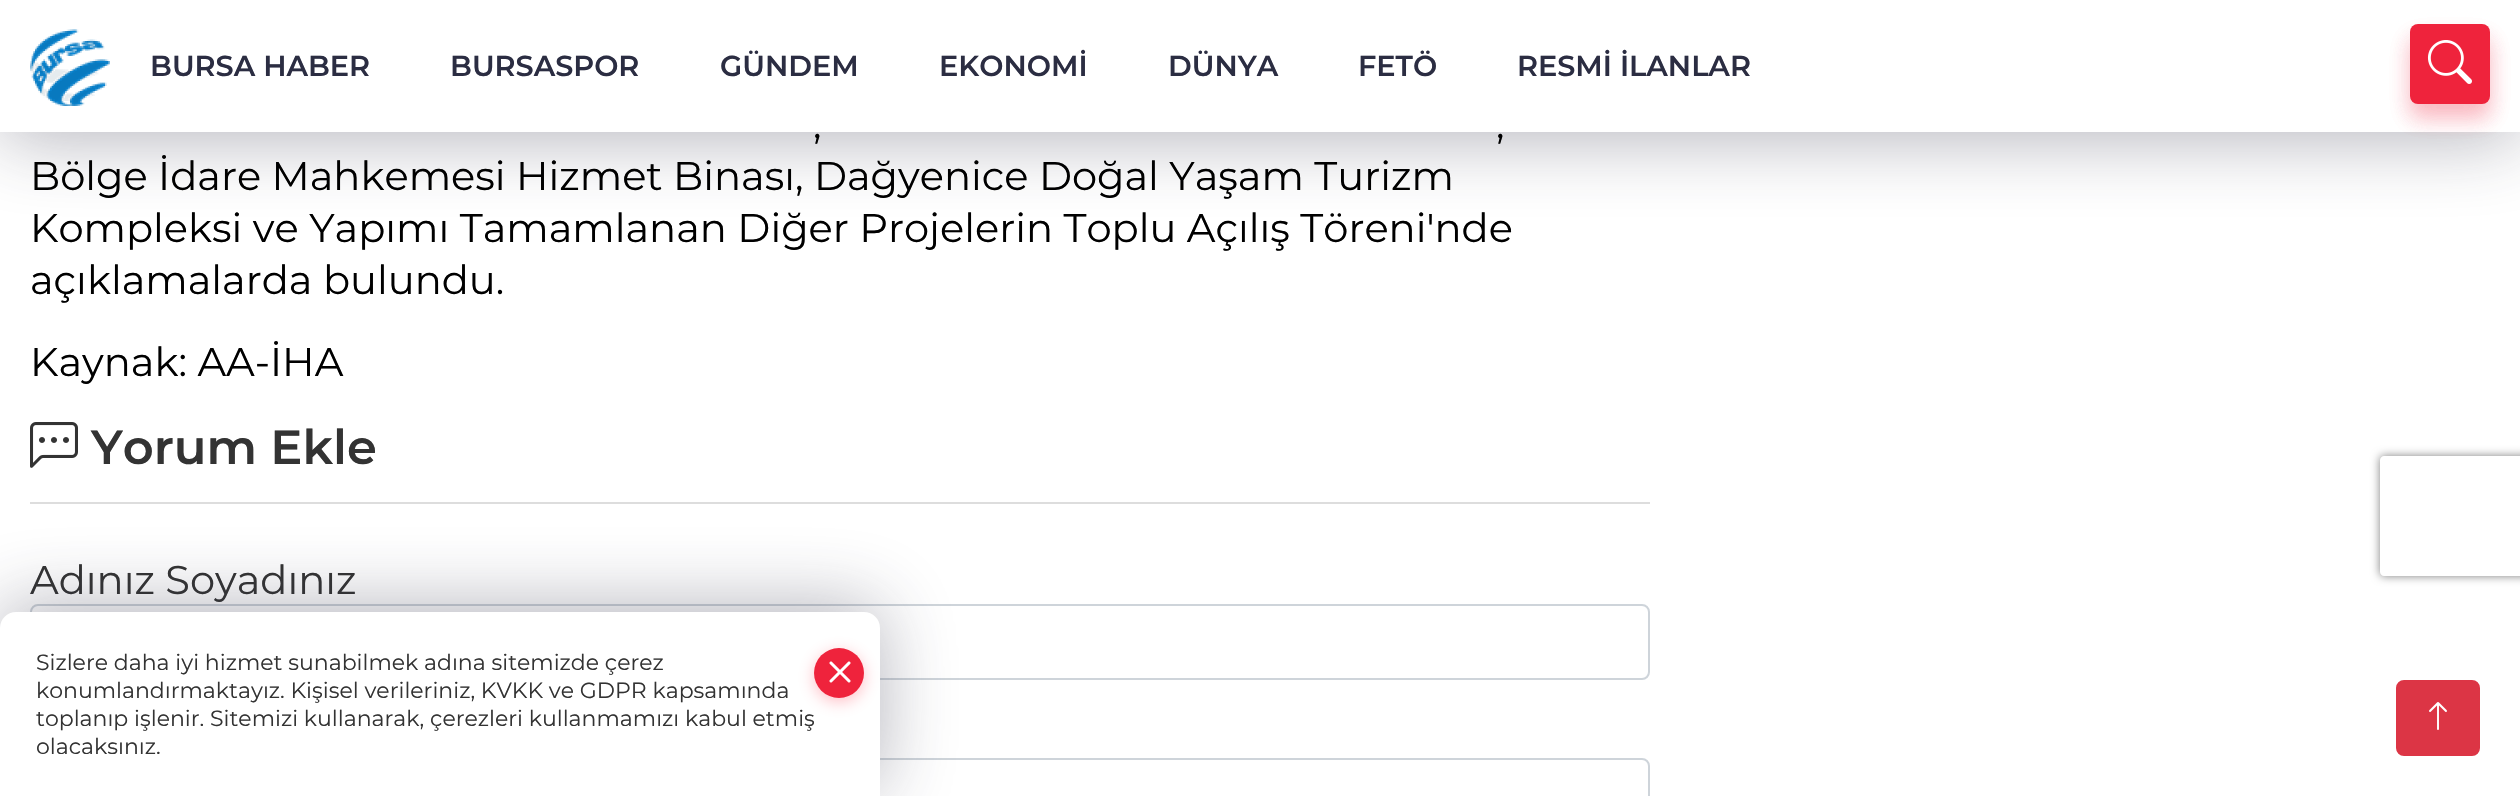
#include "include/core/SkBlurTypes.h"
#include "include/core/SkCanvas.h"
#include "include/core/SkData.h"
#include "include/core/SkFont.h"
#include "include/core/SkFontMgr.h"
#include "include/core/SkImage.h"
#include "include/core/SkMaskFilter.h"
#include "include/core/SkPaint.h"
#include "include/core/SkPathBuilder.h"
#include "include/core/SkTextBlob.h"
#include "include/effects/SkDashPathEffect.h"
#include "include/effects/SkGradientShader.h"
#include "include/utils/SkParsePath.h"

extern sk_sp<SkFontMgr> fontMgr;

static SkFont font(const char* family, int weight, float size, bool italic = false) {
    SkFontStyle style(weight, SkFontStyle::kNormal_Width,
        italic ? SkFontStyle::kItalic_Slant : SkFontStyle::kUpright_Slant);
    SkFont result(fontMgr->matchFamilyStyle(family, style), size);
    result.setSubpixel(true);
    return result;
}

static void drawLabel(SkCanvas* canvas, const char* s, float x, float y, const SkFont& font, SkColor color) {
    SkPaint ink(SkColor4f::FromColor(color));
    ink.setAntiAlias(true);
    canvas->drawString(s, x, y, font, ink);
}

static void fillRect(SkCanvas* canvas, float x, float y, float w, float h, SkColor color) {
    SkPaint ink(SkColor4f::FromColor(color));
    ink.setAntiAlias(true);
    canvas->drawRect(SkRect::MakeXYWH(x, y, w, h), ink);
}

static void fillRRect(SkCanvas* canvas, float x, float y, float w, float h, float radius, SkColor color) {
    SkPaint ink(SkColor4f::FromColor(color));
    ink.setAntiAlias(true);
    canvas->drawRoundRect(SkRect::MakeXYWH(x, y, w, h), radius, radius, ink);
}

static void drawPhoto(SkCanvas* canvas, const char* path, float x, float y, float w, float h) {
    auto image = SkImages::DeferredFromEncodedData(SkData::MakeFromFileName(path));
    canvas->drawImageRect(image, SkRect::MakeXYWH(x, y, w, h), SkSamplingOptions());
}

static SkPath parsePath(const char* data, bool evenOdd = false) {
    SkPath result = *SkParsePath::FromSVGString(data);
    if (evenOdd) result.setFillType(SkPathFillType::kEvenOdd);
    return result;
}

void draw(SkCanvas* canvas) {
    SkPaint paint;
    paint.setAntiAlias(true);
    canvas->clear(0xFFFFFFFF);
    paint.setColor(0x5C2B2D42);
    paint.setMaskFilter(SkMaskFilter::MakeBlur(kNormal_SkBlurStyle, 38));
    canvas->drawRect(SkRect::MakeXYWH(0, 6, 2520, 132), paint);
    paint.setMaskFilter(nullptr);
    fillRect(canvas, 0, 0, 2520, 132, 0xFFFFFFFF);
    drawPhoto(canvas, "assets/img1.png", 30, 29, 80, 77);
    SkFont font1 = font("Montserrat", 600, 28.75f);
    drawLabel(canvas, "BURSA HABER", 150, 76, font1, 0xFF2B2D42);
    drawLabel(canvas, "BURSASPOR", 450, 76, font1, 0xFF2B2D42);
    drawLabel(canvas, "GÜNDEM", 720, 76, font1, 0xFF2B2D42);
    drawLabel(canvas, "EKONOMİ", 939, 76, font1, 0xFF2B2D42);
    drawLabel(canvas, "DÜNYA", 1168, 76, font1, 0xFF2B2D42);
    drawLabel(canvas, "FETÖ", 1358, 76, font1, 0xFF2B2D42);
    drawLabel(canvas, "RESMİ İLANLAR", 1517, 76, font1, 0xFF2B2D42);
    paint.setColor(0x2EEF233C);
    paint.setMaskFilter(SkMaskFilter::MakeBlur(kNormal_SkBlurStyle, 11));
    canvas->drawRoundRect(SkRect::MakeXYWH(2410, 38, 80, 80), 8, 8, paint);
    paint.setMaskFilter(nullptr);
    paint.setMaskFilter(SkMaskFilter::MakeBlur(kNormal_SkBlurStyle, 11));
    canvas->drawRoundRect(SkRect::MakeXYWH(2410, 38, 80, 80), 8, 8, paint);
    paint.setMaskFilter(nullptr);
    fillRRect(canvas, 2410, 24, 80, 80, 8, 0xFFEF233C);
    drawPhoto(canvas, "assets/img2.png", 2427, 40, 45, 44);
    SkFont font2 = font("Montserrat", 400, 40);
    drawLabel(canvas, ",", 813, 138, font2, 0xFF000000);
    drawLabel(canvas, ",", 1496, 138, font2, 0xFF000000);
    drawLabel(canvas, "Bölge İdare Mahkemesi Hizmet Binası, Dağyenice Doğal Yaşam Turizm", 30, 190, font2, 0xFF000000);
    drawLabel(canvas, "Kompleksi ve Yapımı Tamamlanan Diğer Projelerin Toplu Açılış Töreni'nde", 30, 242, font2, 0xFF000000);
    drawLabel(canvas, "açıklamalarda bulundu.", 30, 294, font2, 0xFF000000);
    drawLabel(canvas, "Kaynak: AA-İHA", 30, 376, font2, 0xFF000000);
    fillRect(canvas, 30, 502, 1620, 2, 0xFFDDDDDD);
    drawPhoto(canvas, "assets/img3.png", 30, 422, 48, 46);
    SkFont font3 = font("Montserrat", 600, 48);
    drawLabel(canvas, "Yorum Ekle", 91, 464, font3, 0xFF333333);
    drawLabel(canvas, "Adınız Soyadınız", 30, 594, font2, 0xFF333333);
    paint.setStroke(true);
    paint.setStrokeWidth(2);
    paint.setColor(0xFFCED4DA);
    canvas->drawRoundRect(SkRect::MakeXYWH(31, 605, 1618, 74), 7, 7, paint);
    canvas->drawRoundRect(SkRect::MakeXYWH(31, 759, 1618, 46), 7, 7, paint);
    canvas->save();
    canvas->clipPath(parsePath("M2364 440H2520V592H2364ZM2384 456H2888C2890 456 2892 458 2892 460V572C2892 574 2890 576 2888 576H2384C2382 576 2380 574 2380 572V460C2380 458 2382 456 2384 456Z", true), true);
    paint.setStroke(false);
    paint.setColor(0xFF808080);
    paint.setMaskFilter(SkMaskFilter::MakeBlur(kNormal_SkBlurStyle, 5));
    canvas->drawRoundRect(SkRect::MakeXYWH(2380, 456, 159, 120), 4, 4, paint);
    paint.setMaskFilter(nullptr);
    canvas->restore();
    paint.setColor(0x5C2B2D42);
    paint.setMaskFilter(SkMaskFilter::MakeBlur(kNormal_SkBlurStyle, 38));
    canvas->drawRoundRect(SkRect::MakeXYWH(0, 606, 880, 184), 16, 16, paint);
    paint.setMaskFilter(nullptr);
    paint.setColor(0xFFFFFFFF);
    canvas->drawPath(parsePath("M16 612H864C873 612 880 619 880 628V796H0V628C0 619 7 612 16 612Z"), paint);
    SkFont font4 = font("Montserrat", 400, 22);
    drawLabel(canvas, "Sizlere daha iyi hizmet sunabilmek adına sitemizde çerez", 36, 670, font4, 0xFF333333);
    paint.setColor(0x61FF566A);
    paint.setMaskFilter(SkMaskFilter::MakeBlur(kNormal_SkBlurStyle, 8));
    canvas->drawRoundRect(SkRect::MakeXYWH(814, 652, 50, 50), 25, 25, paint);
    paint.setMaskFilter(nullptr);
    paint.setColor(0xFFEF233C);
    canvas->drawCircle(839, 673, 25, paint);
    drawPhoto(canvas, "assets/img4.png", 829, 661, 22, 22);
    drawLabel(canvas, "konumlandırmaktayız. Kişisel verileriniz, KVKK ve GDPR kapsamında", 36, 698, font4, 0xFF333333);
    drawLabel(canvas, "toplanıp işlenir. Sitemizi kullanarak, çerezleri kullanmamızı kabul etmiş", 36, 726, font4, 0xFF333333);
    drawLabel(canvas, "olacaksınız.", 36, 754, font4, 0xFF333333);
    paint.setColor(0xFFDC3545);
    canvas->drawRoundRect(SkRect::MakeXYWH(2397, 681, 82, 74), 7, 7, paint);
    paint.setStroke(true);
    canvas->drawRoundRect(SkRect::MakeXYWH(2397, 681, 82, 74), 7, 7, paint);
    drawPhoto(canvas, "assets/img5.png", 2429, 702, 18, 28);
}
